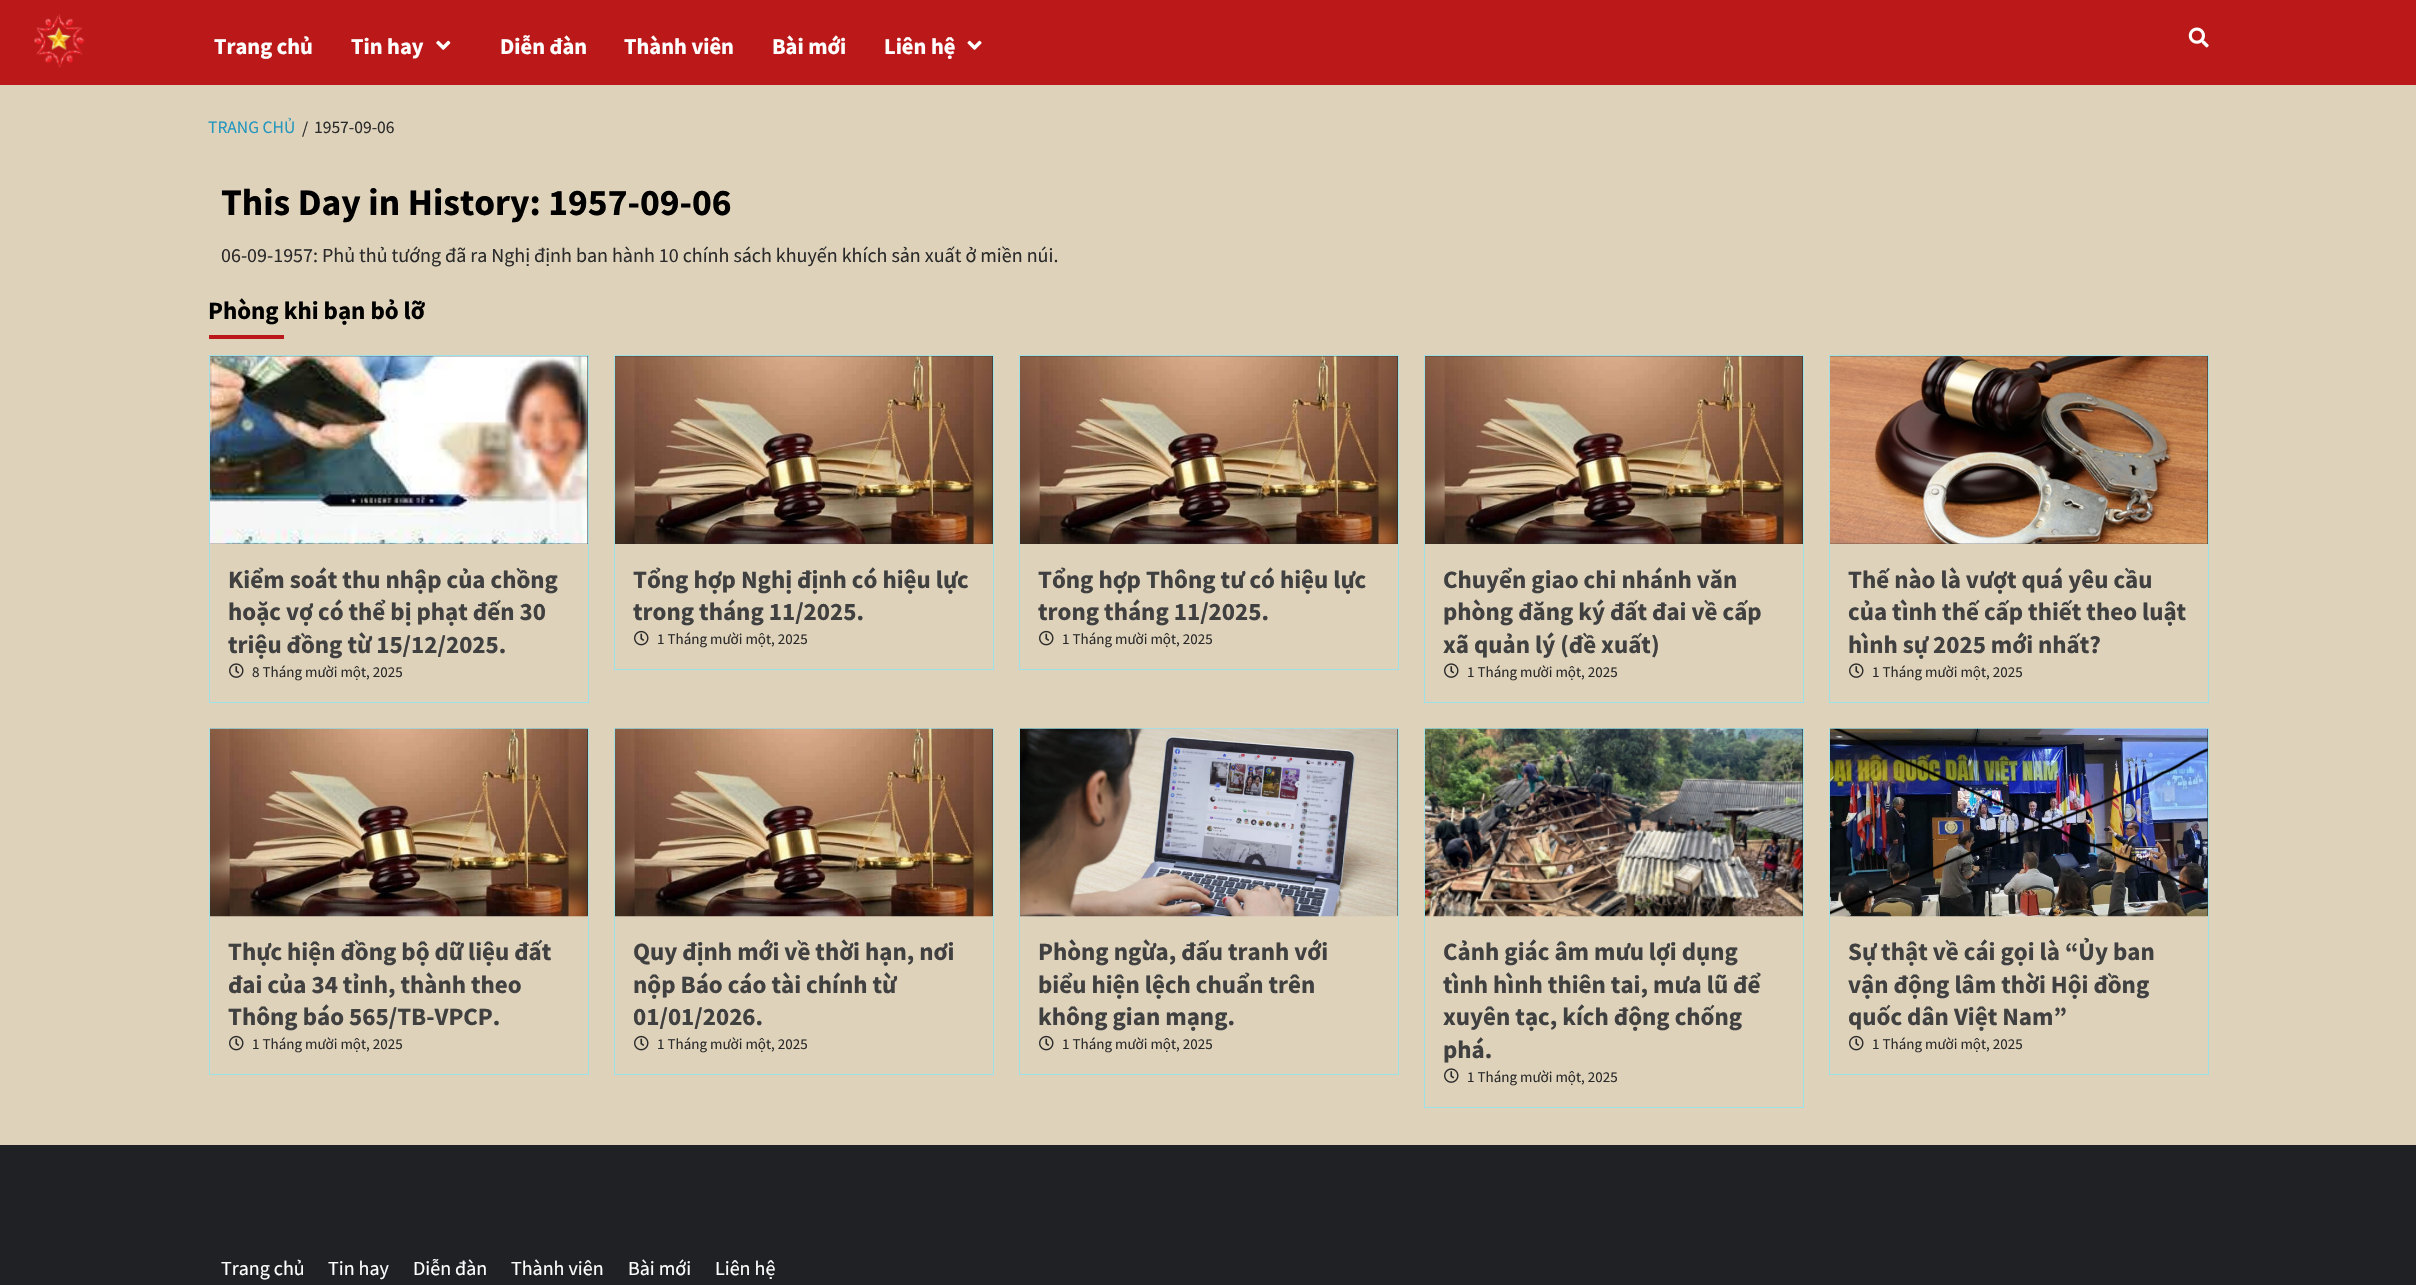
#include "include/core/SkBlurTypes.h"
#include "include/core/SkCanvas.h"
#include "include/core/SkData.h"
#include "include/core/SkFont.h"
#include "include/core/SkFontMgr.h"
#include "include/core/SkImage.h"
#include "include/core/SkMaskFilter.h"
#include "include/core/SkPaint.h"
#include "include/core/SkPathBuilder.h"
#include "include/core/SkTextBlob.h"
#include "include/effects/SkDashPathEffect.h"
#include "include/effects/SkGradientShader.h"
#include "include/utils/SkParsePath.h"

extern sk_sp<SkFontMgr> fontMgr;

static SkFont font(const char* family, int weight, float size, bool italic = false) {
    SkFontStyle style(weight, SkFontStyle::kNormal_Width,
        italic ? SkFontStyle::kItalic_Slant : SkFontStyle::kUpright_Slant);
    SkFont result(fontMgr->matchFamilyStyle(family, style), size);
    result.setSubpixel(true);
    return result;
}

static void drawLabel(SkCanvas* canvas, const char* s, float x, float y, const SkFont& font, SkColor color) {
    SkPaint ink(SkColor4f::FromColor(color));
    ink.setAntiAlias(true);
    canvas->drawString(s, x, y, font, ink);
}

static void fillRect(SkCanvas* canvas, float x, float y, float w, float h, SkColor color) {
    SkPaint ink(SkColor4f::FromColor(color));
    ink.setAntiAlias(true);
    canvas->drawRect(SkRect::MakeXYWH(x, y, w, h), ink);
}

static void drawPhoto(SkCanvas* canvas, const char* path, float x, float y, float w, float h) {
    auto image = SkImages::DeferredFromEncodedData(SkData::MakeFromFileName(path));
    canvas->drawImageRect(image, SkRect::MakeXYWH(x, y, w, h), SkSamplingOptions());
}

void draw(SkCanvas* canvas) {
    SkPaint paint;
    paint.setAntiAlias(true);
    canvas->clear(0xFFDED2BA);
    fillRect(canvas, 0, 0, 2416, 85, 0xFFBB1919);
    SkFont font1 = font("Source Sans Pro", 700, 22.5f);
    drawLabel(canvas, "Trang chủ", 214, 54, font1, 0xFFFFFFFF);
    drawLabel(canvas, "Tin hay", 351, 54, font1, 0xFFFFFFFF);
    drawPhoto(canvas, "assets/img1.png", 436, 40, 15, 10);
    drawLabel(canvas, "Diễn đàn", 500, 54, font1, 0xFFFFFFFF);
    drawLabel(canvas, "Thành viên", 624, 54, font1, 0xFFFFFFFF);
    drawLabel(canvas, "Bài mới", 772, 54, font1, 0xFFFFFFFF);
    drawLabel(canvas, "Liên hệ", 884, 54, font1, 0xFFFFFFFF);
    drawPhoto(canvas, "assets/img2.png", 967, 40, 15, 10);
    drawPhoto(canvas, "assets/img3.png", 2188, 27, 21, 21);
    SkFont font2 = font("Source Sans Pro", 400, 17.5f);
    drawLabel(canvas, "TRANG CHỦ", 208, 133, font2, 0xFF2596BE);
    drawLabel(canvas, "/", 302, 134, font2, 0xFF2A2A2A);
    drawLabel(canvas, "1957-09-06", 314, 133, font2, 0xFF2A2A2A);
    SkFont font3 = font("Source Sans Pro", 700, 37.5f);
    drawLabel(canvas, "This Day in History: 1957-09-06", 221, 215, font3, 0xFF000000);
    SkFont font4 = font("Source Sans Pro", 400, 20);
    drawLabel(canvas, "06-09-1957: Phủ thủ tướng đã ra Nghị định ban hành 10 chính sách khuyến khích sản xuất ở miền núi.", 221, 262, font4, 0xFF2A2A2A);
    SkFont font5 = font("Source Sans Pro", 700, 25);
    drawLabel(canvas, "Phòng khi bạn bỏ lỡ", 208, 319, font5, 0xFF000000);
    fillRect(canvas, 209, 335, 75, 4, 0xFFBB1919);
    paint.setStroke(true);
    paint.setStrokeWidth(1);
    paint.setColor(0xFF9CE0E8);
    canvas->drawRect(SkRect::MakeXYWH(209.5f, 355.5f, 379, 347), paint);
    fillRect(canvas, 210, 356, 378, 188, 0xFF2A2A2A);
    drawPhoto(canvas, "assets/img4.png", 210, 356, 378, 188);
    drawLabel(canvas, "Kiểm soát thu nhập của chồng", 228, 588, font5, 0xFF404040);
    drawLabel(canvas, "hoặc vợ có thể bị phạt đến 30", 228, 620, font5, 0xFF404040);
    drawLabel(canvas, "triệu đồng từ 15/12/2025.", 228, 653, font5, 0xFF404040);
    drawPhoto(canvas, "assets/img5.png", 229, 663, 15, 15);
    SkFont font6 = font("Source Sans Pro", 400, 15);
    drawLabel(canvas, "8 Tháng mười một, 2025", 252, 677, font6, 0xFF2A2A2A);
    canvas->drawRect(SkRect::MakeXYWH(614.5f, 355.5f, 379, 314), paint);
    fillRect(canvas, 615, 356, 378, 188, 0xFF2A2A2A);
    drawPhoto(canvas, "assets/img6.png", 615, 356, 378, 188);
    drawLabel(canvas, "Tổng hợp Nghị định có hiệu lực", 633, 588, font5, 0xFF404040);
    drawLabel(canvas, "trong tháng 11/2025.", 633, 620, font5, 0xFF404040);
    drawPhoto(canvas, "assets/img7.png", 634, 630, 15, 16);
    drawLabel(canvas, "1 Tháng mười một, 2025", 657, 644, font6, 0xFF2A2A2A);
    canvas->drawRect(SkRect::MakeXYWH(1019.5f, 355.5f, 379, 314), paint);
    fillRect(canvas, 1020, 356, 378, 188, 0xFF2A2A2A);
    drawPhoto(canvas, "assets/img6.png", 1020, 356, 378, 188);
    drawLabel(canvas, "Tổng hợp Thông tư có hiệu lực", 1038, 588, font5, 0xFF404040);
    drawLabel(canvas, "trong tháng 11/2025.", 1038, 620, font5, 0xFF404040);
    drawPhoto(canvas, "assets/img7.png", 1039, 630, 15, 16);
    drawLabel(canvas, "1 Tháng mười một, 2025", 1062, 644, font6, 0xFF2A2A2A);
    canvas->drawRect(SkRect::MakeXYWH(1424.5f, 355.5f, 379, 347), paint);
    fillRect(canvas, 1425, 356, 378, 188, 0xFF2A2A2A);
    drawPhoto(canvas, "assets/img6.png", 1425, 356, 378, 188);
    drawLabel(canvas, "Chuyển giao chi nhánh văn", 1443, 588, font5, 0xFF404040);
    drawLabel(canvas, "phòng đăng ký đất đai về cấp", 1443, 620, font5, 0xFF404040);
    drawLabel(canvas, "xã quản lý (đề xuất)", 1443, 653, font5, 0xFF404040);
    drawPhoto(canvas, "assets/img5.png", 1444, 663, 15, 15);
    drawLabel(canvas, "1 Tháng mười một, 2025", 1467, 677, font6, 0xFF2A2A2A);
    canvas->drawRect(SkRect::MakeXYWH(1829.5f, 355.5f, 379, 347), paint);
    fillRect(canvas, 1830, 356, 378, 188, 0xFF2A2A2A);
    drawPhoto(canvas, "assets/img8.png", 1830, 356, 378, 188);
    drawLabel(canvas, "Thế nào là vượt quá yêu cầu", 1848, 588, font5, 0xFF404040);
    drawLabel(canvas, "của tình thế cấp thiết theo luật", 1848, 620, font5, 0xFF404040);
    drawLabel(canvas, "hình sự 2025 mới nhất?", 1848, 653, font5, 0xFF404040);
    drawPhoto(canvas, "assets/img5.png", 1849, 663, 15, 15);
    drawLabel(canvas, "1 Tháng mười một, 2025", 1872, 677, font6, 0xFF2A2A2A);
    canvas->drawRect(SkRect::MakeXYWH(209.5f, 728.5f, 379, 346), paint);
    fillRect(canvas, 587, 729, 1, 187, 0xFF2A2A2A);
    drawPhoto(canvas, "assets/img9.png", 210, 728, 378, 189);
    drawLabel(canvas, "Thực hiện đồng bộ dữ liệu đất", 228, 960, font5, 0xFF404040);
    drawLabel(canvas, "đai của 34 tỉnh, thành theo", 228, 993, font5, 0xFF404040);
    drawLabel(canvas, "Thông báo 565/TB-VPCP.", 228, 1025, font5, 0xFF404040);
    drawPhoto(canvas, "assets/img7.png", 229, 1035, 15, 16);
    drawLabel(canvas, "1 Tháng mười một, 2025", 252, 1049, font6, 0xFF2A2A2A);
    canvas->drawRect(SkRect::MakeXYWH(614.5f, 728.5f, 379, 346), paint);
    fillRect(canvas, 992, 729, 1, 187, 0xFF2A2A2A);
    drawPhoto(canvas, "assets/img9.png", 615, 728, 378, 189);
    drawLabel(canvas, "Quy định mới về thời hạn, nơi", 633, 960, font5, 0xFF404040);
    drawLabel(canvas, "nộp Báo cáo tài chính từ", 633, 993, font5, 0xFF404040);
    drawLabel(canvas, "01/01/2026.", 633, 1025, font5, 0xFF404040);
    drawPhoto(canvas, "assets/img7.png", 634, 1035, 15, 16);
    drawLabel(canvas, "1 Tháng mười một, 2025", 657, 1049, font6, 0xFF2A2A2A);
    canvas->drawRect(SkRect::MakeXYWH(1019.5f, 728.5f, 379, 346), paint);
    fillRect(canvas, 1397, 729, 1, 187, 0xFF2A2A2A);
    drawPhoto(canvas, "assets/img10.png", 1020, 728, 378, 189);
    drawLabel(canvas, "Phòng ngừa, đấu tranh với", 1038, 960, font5, 0xFF404040);
    drawLabel(canvas, "biểu hiện lệch chuẩn trên", 1038, 993, font5, 0xFF404040);
    drawLabel(canvas, "không gian mạng.", 1038, 1025, font5, 0xFF404040);
    drawPhoto(canvas, "assets/img7.png", 1039, 1035, 15, 16);
    drawLabel(canvas, "1 Tháng mười một, 2025", 1062, 1049, font6, 0xFF2A2A2A);
    canvas->drawRect(SkRect::MakeXYWH(1424.5f, 728.5f, 379, 379), paint);
    fillRect(canvas, 1802, 729, 1, 187, 0xFF2A2A2A);
    drawPhoto(canvas, "assets/img11.png", 1425, 728, 378, 189);
    drawLabel(canvas, "Cảnh giác âm mưu lợi dụng", 1443, 960, font5, 0xFF404040);
    drawLabel(canvas, "tình hình thiên tai, mưa lũ để", 1443, 993, font5, 0xFF404040);
    drawLabel(canvas, "xuyên tạc, kích động chống", 1443, 1025, font5, 0xFF404040);
    drawLabel(canvas, "phá.", 1443, 1058, font5, 0xFF404040);
    drawPhoto(canvas, "assets/img5.png", 1444, 1068, 15, 15);
    drawLabel(canvas, "1 Tháng mười một, 2025", 1467, 1082, font6, 0xFF2A2A2A);
    canvas->drawRect(SkRect::MakeXYWH(1829.5f, 728.5f, 379, 346), paint);
    fillRect(canvas, 2207, 729, 1, 187, 0xFF2A2A2A);
    drawPhoto(canvas, "assets/img12.png", 1830, 728, 378, 189);
    drawLabel(canvas, "Sự thật về cái gọi là “Ủy ban", 1848, 960, font5, 0xFF404040);
    drawLabel(canvas, "vận động lâm thời Hội đồng", 1848, 993, font5, 0xFF404040);
    drawLabel(canvas, "quốc dân Việt Nam”", 1848, 1025, font5, 0xFF404040);
    drawPhoto(canvas, "assets/img7.png", 1849, 1035, 15, 16);
    drawLabel(canvas, "1 Tháng mười một, 2025", 1872, 1049, font6, 0xFF2A2A2A);
    fillRect(canvas, 0, 1145, 2416, 140, 0xFF1F2125);
    drawPhoto(canvas, "assets/img13.png", 34, 14, 51, 54);
    drawLabel(canvas, "Trang chủ", 221, 1275, font4, 0xFFFFFFFF);
    drawLabel(canvas, "Tin hay", 328, 1275, font4, 0xFFFFFFFF);
    drawLabel(canvas, "Diễn đàn", 413, 1275, font4, 0xFFFFFFFF);
    drawLabel(canvas, "Thành viên", 511, 1275, font4, 0xFFFFFFFF);
    drawLabel(canvas, "Bài mới", 628, 1275, font4, 0xFFFFFFFF);
    drawLabel(canvas, "Liên hệ", 715, 1275, font4, 0xFFFFFFFF);
}
